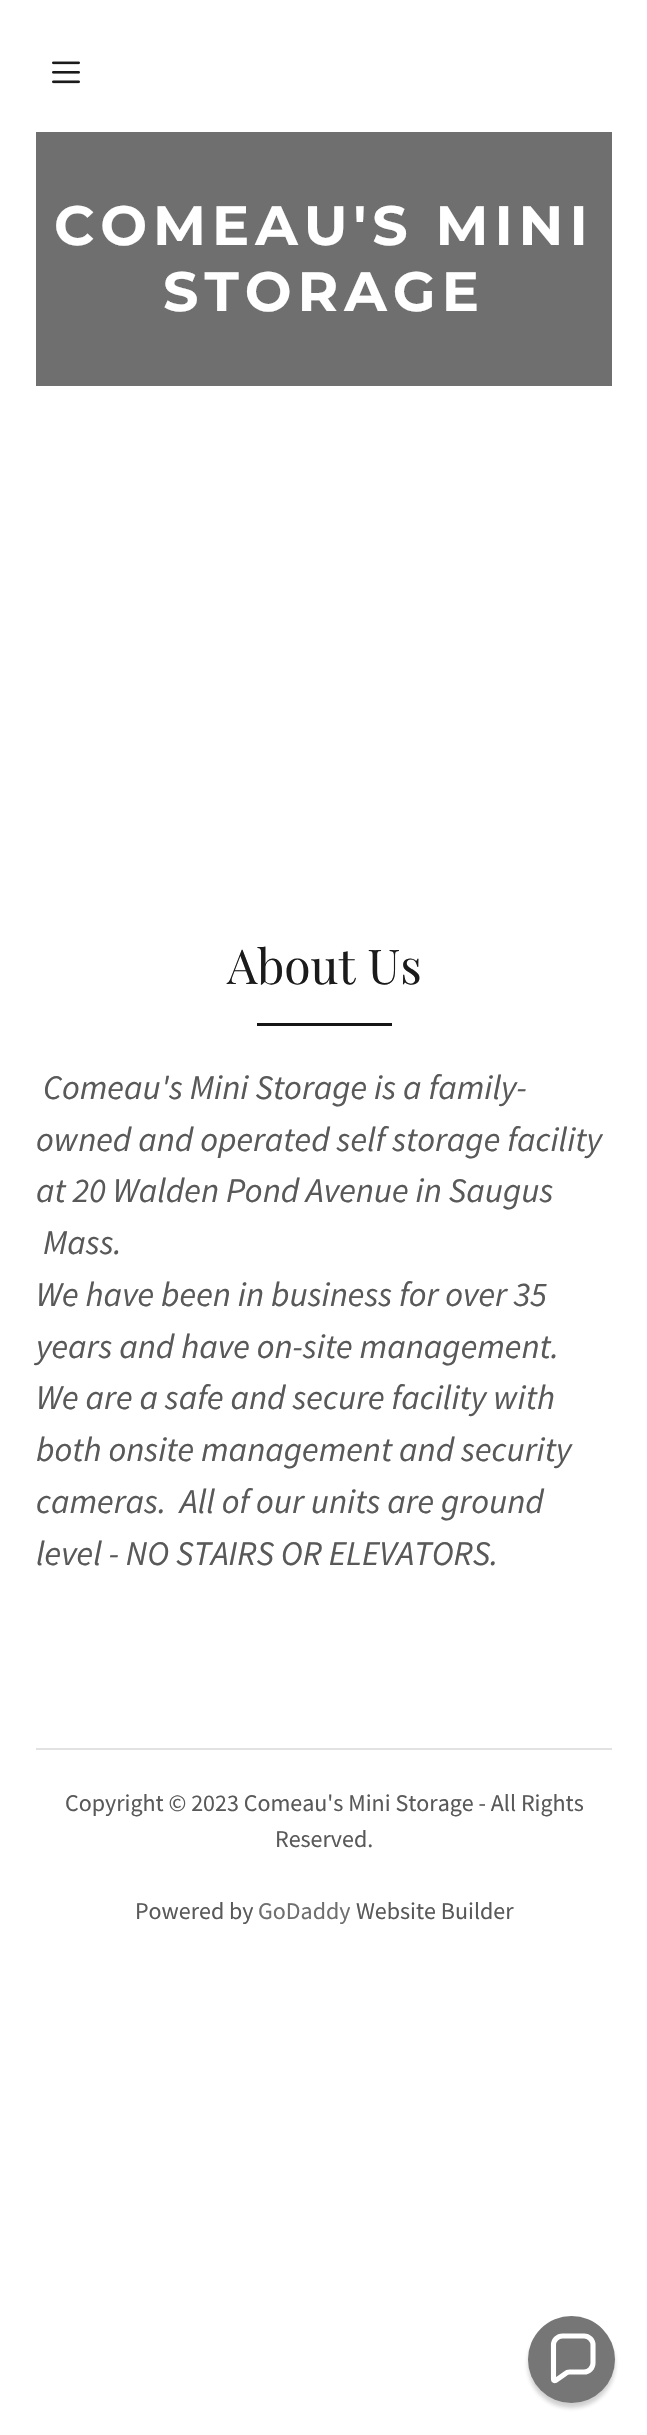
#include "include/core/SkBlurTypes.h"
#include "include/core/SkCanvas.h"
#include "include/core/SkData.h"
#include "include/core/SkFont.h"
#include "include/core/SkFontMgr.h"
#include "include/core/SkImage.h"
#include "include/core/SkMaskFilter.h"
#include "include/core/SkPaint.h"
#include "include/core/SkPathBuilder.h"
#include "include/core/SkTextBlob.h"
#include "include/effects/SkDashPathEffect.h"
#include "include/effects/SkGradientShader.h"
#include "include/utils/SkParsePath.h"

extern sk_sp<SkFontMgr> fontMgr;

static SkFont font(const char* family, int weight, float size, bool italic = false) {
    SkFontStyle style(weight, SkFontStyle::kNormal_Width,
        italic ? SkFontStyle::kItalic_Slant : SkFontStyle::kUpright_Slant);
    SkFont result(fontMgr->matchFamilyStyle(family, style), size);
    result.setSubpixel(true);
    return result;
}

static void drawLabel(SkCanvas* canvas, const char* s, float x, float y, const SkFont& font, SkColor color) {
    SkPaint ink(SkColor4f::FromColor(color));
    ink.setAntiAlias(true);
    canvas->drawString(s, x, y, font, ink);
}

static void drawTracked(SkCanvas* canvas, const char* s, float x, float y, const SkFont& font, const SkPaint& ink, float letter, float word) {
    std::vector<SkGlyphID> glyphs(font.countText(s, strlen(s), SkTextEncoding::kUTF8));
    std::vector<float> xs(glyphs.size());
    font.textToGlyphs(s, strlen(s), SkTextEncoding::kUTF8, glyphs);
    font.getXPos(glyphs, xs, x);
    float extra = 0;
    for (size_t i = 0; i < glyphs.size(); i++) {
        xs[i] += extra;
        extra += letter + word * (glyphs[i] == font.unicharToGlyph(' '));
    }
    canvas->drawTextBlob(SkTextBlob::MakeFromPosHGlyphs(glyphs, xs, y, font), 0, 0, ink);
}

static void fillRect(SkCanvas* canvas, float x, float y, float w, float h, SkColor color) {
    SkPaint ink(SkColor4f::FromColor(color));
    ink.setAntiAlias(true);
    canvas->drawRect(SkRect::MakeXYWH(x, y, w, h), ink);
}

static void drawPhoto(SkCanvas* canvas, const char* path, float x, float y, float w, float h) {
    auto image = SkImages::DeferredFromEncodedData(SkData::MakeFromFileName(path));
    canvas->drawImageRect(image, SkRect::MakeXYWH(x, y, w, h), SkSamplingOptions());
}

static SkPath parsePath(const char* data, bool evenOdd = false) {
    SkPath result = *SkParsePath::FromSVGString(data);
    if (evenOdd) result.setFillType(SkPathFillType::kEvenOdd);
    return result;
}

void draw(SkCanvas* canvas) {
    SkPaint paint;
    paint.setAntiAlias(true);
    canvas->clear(0xFFFFFFFF);
    drawPhoto(canvas, "assets/img1.png", 52, 61, 28, 23);
    fillRect(canvas, 36, 132, 576, 254, 0xFF6F6F6F);
    SkFont font1 = font("Montserrat", 700, 55.5f);
    paint.setColor(0xFFFFFFFF);
    drawTracked(canvas, "COMEAU'S MINI", 54, 245, font1, paint, 6, 0);
    drawTracked(canvas, "STORAGE", 163, 311, font1, paint, 6, 0);
    SkFont font2 = font("Playfair Display", 400, 48);
    drawLabel(canvas, "About Us", 227, 984, font2, 0xFF1B1B1B);
    fillRect(canvas, 257, 1023, 135, 3, 0xFF161616);
    SkFont font3 = font("Source Sans Pro", 400, 34.5f, true);
    drawLabel(canvas, "Comeau's Mini Storage is a family-", 43, 1099, font3, 0xFF595959);
    drawLabel(canvas, "owned and operated self storage facility", 36, 1151, font3, 0xFF595959);
    drawLabel(canvas, "at 20 Walden Pond Avenue in Saugus", 36, 1202, font3, 0xFF595959);
    drawLabel(canvas, "Mass.", 43, 1254, font3, 0xFF595959);
    drawLabel(canvas, "We have been in business for over 35", 36, 1306, font3, 0xFF595959);
    drawLabel(canvas, "years and have on-site management.", 36, 1358, font3, 0xFF595959);
    drawLabel(canvas, "We are a safe and secure facility with", 36, 1409, font3, 0xFF595959);
    drawLabel(canvas, "both onsite management and security", 36, 1461, font3, 0xFF595959);
    drawLabel(canvas, "cameras.  All of our units are ground", 36, 1513, font3, 0xFF595959);
    drawLabel(canvas, "level - NO STAIRS OR ELEVATORS.", 36, 1565, font3, 0xFF595959);
    fillRect(canvas, 36, 1748, 576, 2, 0xFFE2E2E2);
    SkFont font4 = font("Source Sans Pro", 400, 24);
    drawLabel(canvas, "Copyright © 2023 Comeau's Mini Storage - All Rights", 65, 1811, font4, 0xFF595959);
    drawLabel(canvas, "Reserved.", 275, 1847, font4, 0xFF595959);
    drawLabel(canvas, "Powered by", 135, 1919, font4, 0xFF595959);
    drawLabel(canvas, "GoDaddy", 258, 1919, font4, 0xFF6F6F6F);
    drawLabel(canvas, "Website Builder", 356, 1919, font4, 0xFF595959);
    paint.setColor(0x330D0D0D);
    paint.setMaskFilter(SkMaskFilter::MakeBlur(kNormal_SkBlurStyle, 2));
    canvas->drawRoundRect(SkRect::MakeXYWH(528, 2321, 87, 87), 43.5f, 43.5f, paint);
    paint.setMaskFilter(nullptr);
    paint.setColor(0xFF767676);
    canvas->drawCircle(571.5f, 2359.5f, 43.5f, paint);
    paint.setStroke(true);
    paint.setStrokeWidth(5.1f);
    paint.setColor(0xFFFFFFFF);
    canvas->drawPath(parsePath("M584 2336H562.5C557.5 2336 553.5 2340 553.5 2345V2379.5C553.5 2380.5 554.5 2381 555.5 2380.5L565.5 2373.5C566.5 2372.5 568 2372 569.5 2372H584C589 2372 593 2368 593 2363V2345C593 2340 589 2336 584 2336Z"), paint);
}
